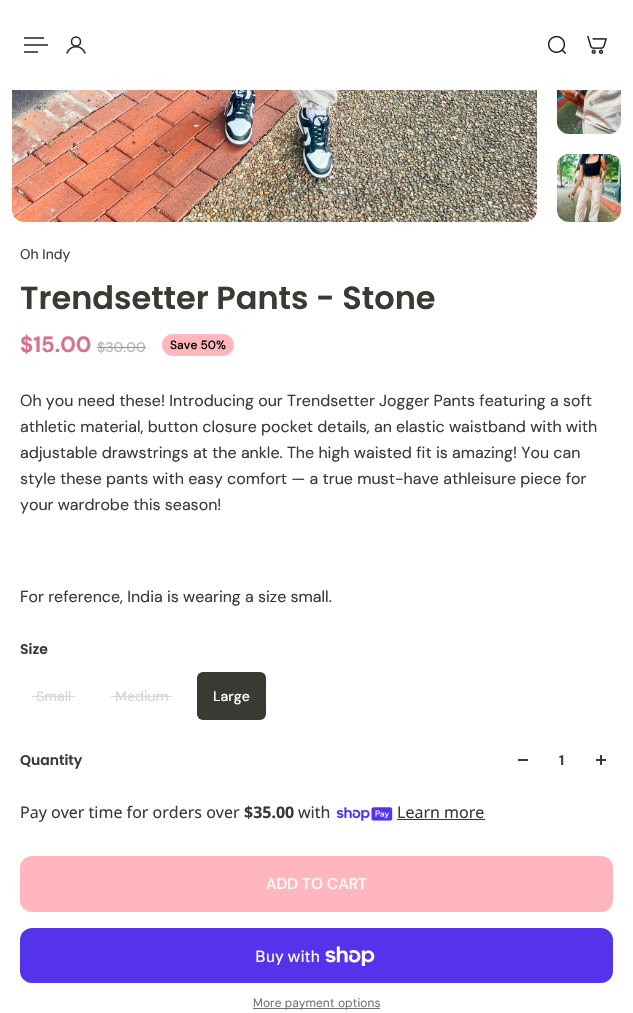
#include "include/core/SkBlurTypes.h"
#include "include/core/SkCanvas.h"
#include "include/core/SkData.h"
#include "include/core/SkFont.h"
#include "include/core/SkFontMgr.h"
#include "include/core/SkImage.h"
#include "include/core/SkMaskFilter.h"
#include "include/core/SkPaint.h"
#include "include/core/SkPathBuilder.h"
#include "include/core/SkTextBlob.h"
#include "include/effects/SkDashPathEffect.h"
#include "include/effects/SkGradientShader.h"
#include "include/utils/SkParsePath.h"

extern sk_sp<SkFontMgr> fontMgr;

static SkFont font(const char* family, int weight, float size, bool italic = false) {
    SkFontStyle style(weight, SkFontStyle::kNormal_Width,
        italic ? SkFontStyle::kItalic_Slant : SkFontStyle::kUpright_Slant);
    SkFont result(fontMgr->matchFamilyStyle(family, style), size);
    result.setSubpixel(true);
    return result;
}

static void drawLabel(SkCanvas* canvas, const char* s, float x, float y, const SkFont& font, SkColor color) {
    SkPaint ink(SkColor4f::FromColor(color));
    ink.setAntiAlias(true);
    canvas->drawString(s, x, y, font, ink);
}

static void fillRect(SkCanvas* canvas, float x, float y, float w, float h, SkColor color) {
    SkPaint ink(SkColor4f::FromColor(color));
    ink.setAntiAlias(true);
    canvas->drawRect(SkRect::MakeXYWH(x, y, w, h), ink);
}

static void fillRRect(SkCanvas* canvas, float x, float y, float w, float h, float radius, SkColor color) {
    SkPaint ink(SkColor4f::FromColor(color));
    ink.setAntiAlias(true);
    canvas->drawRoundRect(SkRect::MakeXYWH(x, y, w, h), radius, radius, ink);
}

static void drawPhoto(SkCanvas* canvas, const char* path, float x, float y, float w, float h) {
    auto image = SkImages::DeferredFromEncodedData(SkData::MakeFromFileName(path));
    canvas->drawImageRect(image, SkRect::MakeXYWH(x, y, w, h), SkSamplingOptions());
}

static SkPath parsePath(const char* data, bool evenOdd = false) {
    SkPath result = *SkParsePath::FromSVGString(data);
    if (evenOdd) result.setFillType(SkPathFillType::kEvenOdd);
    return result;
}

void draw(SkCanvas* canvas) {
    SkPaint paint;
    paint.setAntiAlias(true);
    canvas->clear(0xFFFFFFFF);
    fillRect(canvas, 24, 37, 20, 2, 0xFF595959);
    fillRect(canvas, 24, 44, 24, 2, 0xFF595959);
    fillRect(canvas, 24, 51, 14, 2, 0xFF595959);
    paint.setStroke(true);
    paint.setStrokeWidth(1.5f);
    paint.setColor(0xFF222222);
    canvas->drawCircle(76, 41.5f, 4.5f, paint);
    paint.setStrokeCap(SkPaint::kRound_Cap);
    paint.setStrokeJoin(SkPaint::kRound_Join);
    canvas->drawPath(parsePath("M67 53C70.5 44.5 81.5 44.5 85 53"), paint);
    drawPhoto(canvas, "assets/img1.png", 547, 35, 19, 19);
    drawPhoto(canvas, "assets/img2.png", 587, 35, 20, 19);
    drawPhoto(canvas, "assets/img3.png", 12, 90, 525, 132);
    drawPhoto(canvas, "assets/img4.png", 557, 90, 64, 44);
    drawPhoto(canvas, "assets/img5.png", 557, 154, 64, 68);
    SkFont font1 = font("DM Sans", 400, 14);
    drawLabel(canvas, "Oh Indy", 20, 259, font1, 0xFF3B3933);
    SkFont font2 = font("Poppins", 600, 32);
    drawLabel(canvas, "Trendsetter Pants - Stone", 20, 309, font2, 0xFF3B3933);
    SkFont font3 = font("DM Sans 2", 700, 22);
    drawLabel(canvas, "$15.00", 20, 352, font3, 0xFFDB708E);
    SkFont font4 = font("DM Sans", 500, 14);
    drawLabel(canvas, "$30.00", 97, 352, font4, 0xFFBABAB8);
    fillRect(canvas, 97, 347, 49, 1, 0xFFDB708E);
    fillRRect(canvas, 162, 334, 72, 22, 11, 0xFFFFB7BD);
    SkFont font5 = font("DM Sans 2", 500, 12);
    drawLabel(canvas, "Save 50%", 170, 349, font5, 0xFF000000);
    SkFont font6 = font("DM Sans 2", 400, 16);
    drawLabel(canvas, "Oh you need these! Introducing our Trendsetter Jogger Pants featuring a soft", 20, 406, font6, 0xFF3B3933);
    drawLabel(canvas, "athletic material, button closure pocket details, an elastic waistband with with", 20, 432, font6, 0xFF3B3933);
    drawLabel(canvas, "adjustable drawstrings at the ankle. The high waisted fit is amazing! You can", 20, 458, font6, 0xFF3B3933);
    drawLabel(canvas, "style these pants with easy comfort — a true must-have athleisure piece for", 20, 484, font6, 0xFF3B3933);
    drawLabel(canvas, "your wardrobe this season!", 20, 510, font6, 0xFF3B3933);
    drawLabel(canvas, "For reference, India is wearing a size small.", 20, 602, font6, 0xFF3B3933);
    SkFont font7 = font("Poppins", 600, 14);
    drawLabel(canvas, "Size", 20, 654, font7, 0xFF3B3933);
    drawLabel(canvas, "Small", 36, 701, font4, 0xFFD8D7D6);
    fillRect(canvas, 32, 696, 43, 1, 0xFFD8D7D6);
    drawLabel(canvas, "Medium", 115, 701, font4, 0xFFD8D7D6);
    fillRect(canvas, 111, 696, 61, 1, 0xFFD8D7D6);
    fillRRect(canvas, 197, 672, 69, 48, 6, 0xFF3B3933);
    drawLabel(canvas, "Large", 213, 701, font4, 0xFFFFFFFF);
    drawLabel(canvas, "Quantity", 20, 765, font7, 0xFF3B3933);
    fillRect(canvas, 518, 759, 10, 2, 0xFF3B3933);
    SkFont font8 = font("DM Sans", 700, 14);
    drawLabel(canvas, "1", 559, 765, font8, 0xFF3B3933);
    fillRect(canvas, 596, 759, 10, 2, 0xFF3B3933);
    fillRect(canvas, 600, 755, 2, 10, 0xFF3B3933);
    SkFont font9 = font("Noto Sans", 400, 16);
    drawLabel(canvas, "Pay over time for orders over", 20, 818, font9, 0xFF3B3933);
    SkFont font10 = font("Noto Sans", 700, 16);
    drawLabel(canvas, "$35.00", 244, 818, font10, 0xFF3B3933);
    drawLabel(canvas, "with", 298, 818, font9, 0xFF3B3933);
    drawPhoto(canvas, "assets/img6.png", 336, 807, 57, 14);
    drawLabel(canvas, "Learn more", 397, 818, font9, 0xFF3B3933);
    fillRect(canvas, 397, 819, 88, 1, 0xFF3B3933);
    fillRRect(canvas, 20, 856, 593, 56, 12, 0xFFFFB7BD);
    SkFont font11 = font("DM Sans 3", 500, 15.5f);
    drawLabel(canvas, "ADD TO CART", 266, 889, font11, 0xFFFFFFFF);
    fillRRect(canvas, 20, 928, 593, 55, 12, 0xFF5433EB);
    SkFont font12 = font("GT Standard", 400, 16);
    drawLabel(canvas, "Buy with", 255, 962, font12, 0xFFFFFFFF);
    drawPhoto(canvas, "assets/img7.png", 325, 946, 50, 20);
    fillRect(canvas, 253, 1008, 127, 1, 0xFF767470);
    SkFont font13 = font("DM Sans", 400, 12);
    drawLabel(canvas, "More payment options", 253, 1007, font13, 0xFF757470);
}
